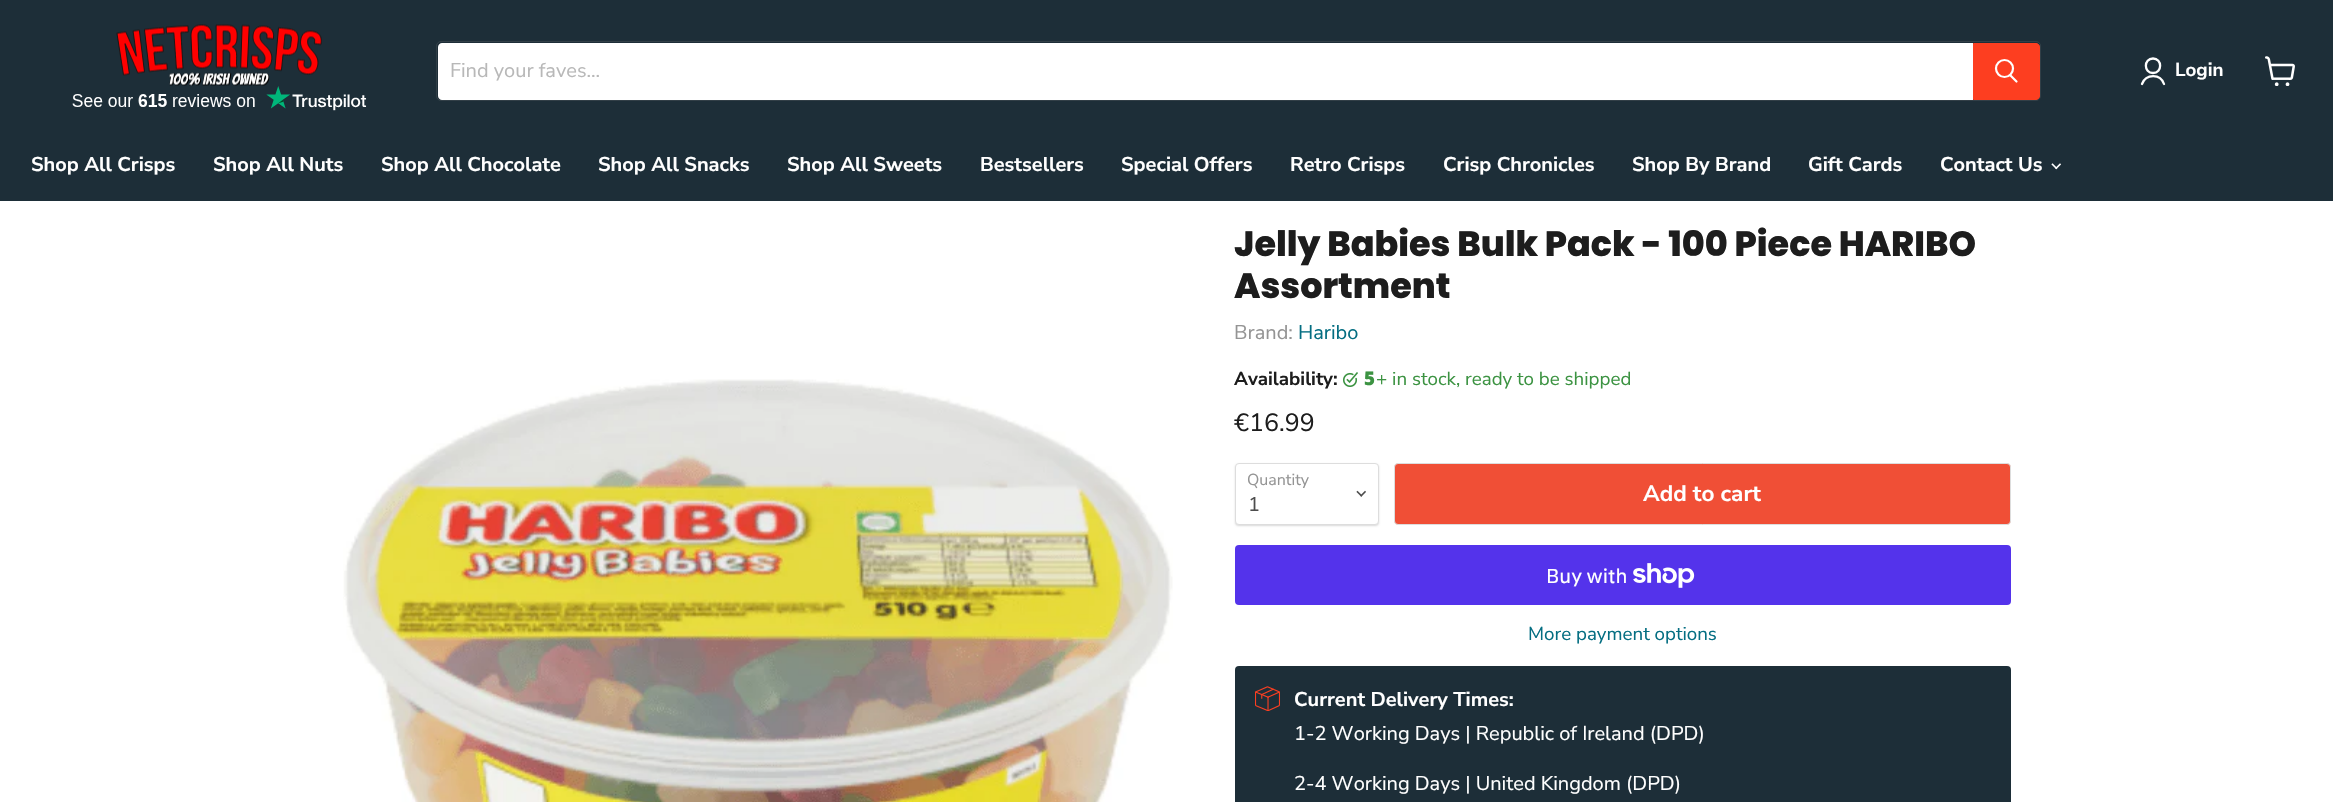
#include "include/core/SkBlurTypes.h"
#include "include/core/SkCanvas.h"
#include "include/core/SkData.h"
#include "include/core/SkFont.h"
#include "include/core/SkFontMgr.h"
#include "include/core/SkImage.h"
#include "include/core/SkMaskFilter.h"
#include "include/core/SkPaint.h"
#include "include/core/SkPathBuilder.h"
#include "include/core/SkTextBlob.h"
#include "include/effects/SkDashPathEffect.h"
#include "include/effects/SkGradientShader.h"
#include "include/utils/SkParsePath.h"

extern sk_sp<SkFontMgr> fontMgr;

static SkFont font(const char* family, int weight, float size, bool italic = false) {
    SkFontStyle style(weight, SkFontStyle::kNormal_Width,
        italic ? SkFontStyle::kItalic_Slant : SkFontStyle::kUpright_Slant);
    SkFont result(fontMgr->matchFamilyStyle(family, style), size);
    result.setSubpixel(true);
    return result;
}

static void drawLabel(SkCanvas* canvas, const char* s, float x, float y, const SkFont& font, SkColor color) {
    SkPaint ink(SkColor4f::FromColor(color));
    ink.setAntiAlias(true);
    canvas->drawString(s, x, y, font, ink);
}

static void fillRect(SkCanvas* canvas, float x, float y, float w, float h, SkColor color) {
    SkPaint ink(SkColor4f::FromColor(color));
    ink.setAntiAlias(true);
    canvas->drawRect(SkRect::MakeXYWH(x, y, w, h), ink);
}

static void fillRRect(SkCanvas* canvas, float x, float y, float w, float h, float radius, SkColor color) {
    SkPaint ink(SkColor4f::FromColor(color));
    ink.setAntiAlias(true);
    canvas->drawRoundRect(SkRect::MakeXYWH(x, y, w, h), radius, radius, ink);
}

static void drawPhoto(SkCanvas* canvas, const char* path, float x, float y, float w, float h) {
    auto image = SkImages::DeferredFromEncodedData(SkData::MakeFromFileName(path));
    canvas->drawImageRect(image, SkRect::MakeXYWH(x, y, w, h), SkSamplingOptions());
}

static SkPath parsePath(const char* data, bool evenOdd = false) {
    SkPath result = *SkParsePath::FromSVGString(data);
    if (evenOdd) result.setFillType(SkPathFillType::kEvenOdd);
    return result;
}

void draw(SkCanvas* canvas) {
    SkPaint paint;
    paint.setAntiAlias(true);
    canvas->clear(0xFFFFFFFF);
    fillRect(canvas, 0, 0, 2333, 201, 0xFF1D2E38);
    drawPhoto(canvas, "assets/img1.png", 116, 24, 206, 62);
    drawPhoto(canvas, "assets/img2.png", 72, 86, 295, 25);
    paint.setStroke(true);
    paint.setStrokeWidth(1);
    paint.setColor(0x33808080);
    canvas->drawRoundRect(SkRect::MakeXYWH(436.5f, 41.5f, 1604, 59), 4.5f, 4.5f, paint);
    paint.setStroke(false);
    paint.setColor(0xFFFFFFFF);
    canvas->drawPath(parsePath("M442 43H1973V100H442C440 100 438 98 438 96V47C438 45 440 43 442 43Z"), paint);
    SkFont font1 = font("Nunito Sans", 400, 20);
    drawLabel(canvas, "Find your faves...", 450, 77, font1, 0xFFB8B8B8);
    paint.setColor(0xFFFD3E20);
    canvas->drawPath(parsePath("M1973.5 43.5H2036C2038 43.5 2039.5 45 2039.5 47V96C2039.5 98 2038 99.5 2036 99.5H1973.5Z"), paint);
    paint.setStroke(true);
    canvas->drawPath(parsePath("M1973.5 43.5H2036C2038 43.5 2039.5 45 2039.5 47V96C2039.5 98 2038 99.5 2036 99.5H1973.5Z"), paint);
    paint.setStrokeWidth(2.2f);
    paint.setStrokeCap(SkPaint::kRound_Cap);
    paint.setColor(0xFFFFFFFF);
    canvas->drawPath(parsePath("M2016.5 81.5L2010.5 75.5"), paint);
    paint.setStrokeCap(SkPaint::kButt_Cap);
    canvas->drawCircle(2004.5f, 68.5f, 8.5f, paint);
    paint.setStrokeWidth(2.3f);
    paint.setStrokeCap(SkPaint::kRound_Cap);
    paint.setStrokeJoin(SkPaint::kRound_Join);
    canvas->drawPath(parsePath("M2153 73C2162.5 73 2162.5 58.5 2153 58.5C2143.5 58.5 2143.5 73 2153 73ZM2164 84C2160.5 73.5 2146 73.5 2142 84"), paint);
    SkFont font2 = font("Nunito Sans", 700, 18.75f);
    drawLabel(canvas, "Login", 2175, 76, font2, 0xFFFFFFFF);
    drawPhoto(canvas, "assets/img3.png", 2265, 56, 30, 30);
    SkFont font3 = font("Nunito Sans", 700, 20);
    drawLabel(canvas, "Shop All Crisps", 31, 171, font3, 0xFFFFFFFF);
    drawLabel(canvas, "Shop All Nuts", 213, 171, font3, 0xFFFFFFFF);
    drawLabel(canvas, "Shop All Chocolate", 381, 171, font3, 0xFFFFFFFF);
    drawLabel(canvas, "Shop All Snacks", 598, 171, font3, 0xFFFFFFFF);
    drawLabel(canvas, "Shop All Sweets", 787, 171, font3, 0xFFFFFFFF);
    drawLabel(canvas, "Bestsellers", 980, 171, font3, 0xFFFFFFFF);
    drawLabel(canvas, "Special Offers", 1121, 171, font3, 0xFFFFFFFF);
    drawLabel(canvas, "Retro Crisps", 1290, 171, font3, 0xFFFFFFFF);
    drawLabel(canvas, "Crisp Chronicles", 1443, 171, font3, 0xFFFFFFFF);
    drawLabel(canvas, "Shop By Brand", 1632, 171, font3, 0xFFFFFFFF);
    drawLabel(canvas, "Gift Cards", 1808, 171, font3, 0xFFFFFFFF);
    drawLabel(canvas, "Contact Us", 1940, 171, font3, 0xFFFFFFFF);
    drawPhoto(canvas, "assets/img4.png", 2051, 163, 10, 7);
    drawPhoto(canvas, "assets/img5.png", 343, 379, 830, 423);
    SkFont font4 = font("Poppins", 800, 35);
    drawLabel(canvas, "Jelly Babies Bulk Pack - 100 Piece HARIBO", 1234, 256, font4, 0xFF1D1D1D);
    drawLabel(canvas, "Assortment", 1234, 298, font4, 0xFF1D1D1D);
    drawLabel(canvas, "Brand:", 1234, 339, font1, 0xFF949494);
    drawLabel(canvas, "Haribo", 1298, 339, font1, 0xFF046E82);
    drawLabel(canvas, "Availability:", 1234, 385, font2, 0xFF1D1D1D);
    drawPhoto(canvas, "assets/img6.png", 1343, 372, 15, 15);
    SkFont font5 = font("Noto Sans", 900, 18.75f);
    drawLabel(canvas, "5", 1364, 385, font5, 0xFF3C9342);
    SkFont font6 = font("Nunito Sans", 400, 18.75f);
    drawLabel(canvas, "+ in stock, ready to be shipped", 1376, 385, font6, 0xFF3C9342);
    SkFont font7 = font("Nunito Sans", 400, 25);
    drawLabel(canvas, "€16.99", 1234, 431, font7, 0xFF1D1D1D);
    paint.setStroke(false);
    paint.setColor(0x26000000);
    paint.setMaskFilter(SkMaskFilter::MakeBlur(kNormal_SkBlurStyle, 1));
    canvas->drawRoundRect(SkRect::MakeXYWH(1235, 464, 144, 62), 4, 4, paint);
    paint.setMaskFilter(nullptr);
    paint.setColor(0xFFFFFFFF);
    canvas->drawRoundRect(SkRect::MakeXYWH(1235.5f, 463.5f, 143, 61), 3.5f, 3.5f, paint);
    paint.setStroke(true);
    paint.setStrokeWidth(1);
    paint.setStrokeCap(SkPaint::kButt_Cap);
    paint.setStrokeJoin(SkPaint::kMiter_Join);
    paint.setColor(0xFFDDDDDD);
    canvas->drawRoundRect(SkRect::MakeXYWH(1235.5f, 463.5f, 143, 61), 3.5f, 3.5f, paint);
    SkFont font8 = font("Nunito Sans", 400, 16);
    drawLabel(canvas, "Quantity", 1247, 485, font8, 0xFF949494);
    drawPhoto(canvas, "assets/img7.png", 1356, 490, 10, 7);
    drawLabel(canvas, "1", 1248, 511, font1, 0xFF4D4D4D);
    paint.setStroke(false);
    paint.setColor(0xFFF04F36);
    canvas->drawRoundRect(SkRect::MakeXYWH(1394.5f, 463.5f, 616, 61), 3.5f, 3.5f, paint);
    paint.setStroke(true);
    paint.setColor(0xFFDDDDDD);
    canvas->drawRoundRect(SkRect::MakeXYWH(1394.5f, 463.5f, 616, 61), 3.5f, 3.5f, paint);
    SkFont font9 = font("Nunito Sans", 700, 22.5f);
    drawLabel(canvas, "Add to cart", 1643, 501, font9, 0xFFFFFFFF);
    fillRRect(canvas, 1235, 545, 776, 60, 4, 0xFF5433EB);
    SkFont font10 = font("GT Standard", 400, 20);
    drawLabel(canvas, "Buy with", 1546, 583, font10, 0xFFFFFFFF);
    drawPhoto(canvas, "assets/img8.png", 1633, 563, 62, 25);
    drawLabel(canvas, "More payment options", 1528, 640, font6, 0xFF046E82);
    fillRRect(canvas, 1235, 666, 776, 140, 4, 0xFF1D2E38);
    drawPhoto(canvas, "assets/img9.png", 1255, 686, 25, 25);
    drawLabel(canvas, "Current Delivery Times:", 1294, 706, font3, 0xFFFFFFFF);
    drawLabel(canvas, "1-2 Working Days | Republic of Ireland (DPD)", 1294, 740, font1, 0xFFFFFFFF);
    drawLabel(canvas, "2-4 Working Days | United Kingdom (DPD)", 1294, 790, font1, 0xFFFFFFFF);
}
